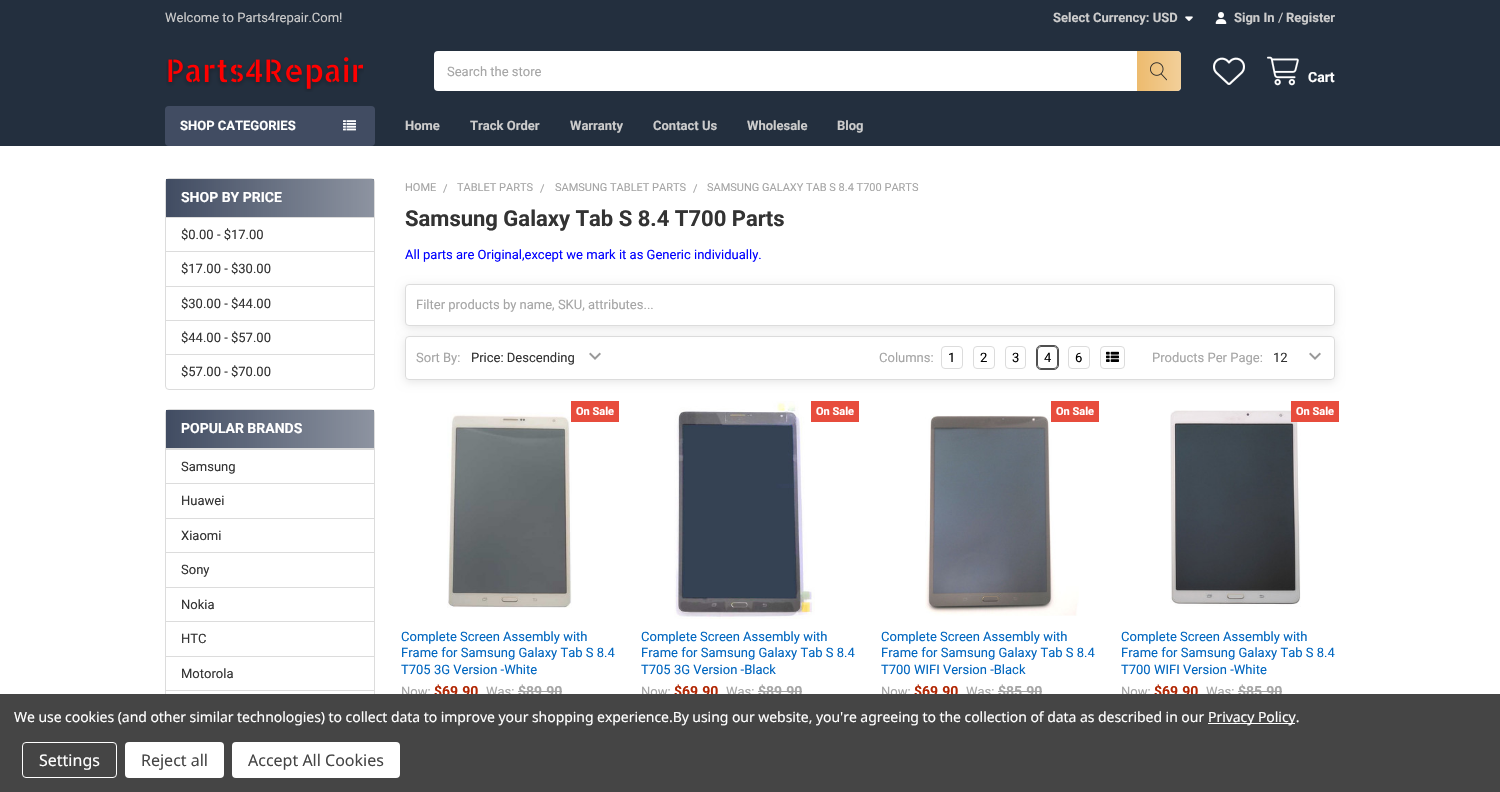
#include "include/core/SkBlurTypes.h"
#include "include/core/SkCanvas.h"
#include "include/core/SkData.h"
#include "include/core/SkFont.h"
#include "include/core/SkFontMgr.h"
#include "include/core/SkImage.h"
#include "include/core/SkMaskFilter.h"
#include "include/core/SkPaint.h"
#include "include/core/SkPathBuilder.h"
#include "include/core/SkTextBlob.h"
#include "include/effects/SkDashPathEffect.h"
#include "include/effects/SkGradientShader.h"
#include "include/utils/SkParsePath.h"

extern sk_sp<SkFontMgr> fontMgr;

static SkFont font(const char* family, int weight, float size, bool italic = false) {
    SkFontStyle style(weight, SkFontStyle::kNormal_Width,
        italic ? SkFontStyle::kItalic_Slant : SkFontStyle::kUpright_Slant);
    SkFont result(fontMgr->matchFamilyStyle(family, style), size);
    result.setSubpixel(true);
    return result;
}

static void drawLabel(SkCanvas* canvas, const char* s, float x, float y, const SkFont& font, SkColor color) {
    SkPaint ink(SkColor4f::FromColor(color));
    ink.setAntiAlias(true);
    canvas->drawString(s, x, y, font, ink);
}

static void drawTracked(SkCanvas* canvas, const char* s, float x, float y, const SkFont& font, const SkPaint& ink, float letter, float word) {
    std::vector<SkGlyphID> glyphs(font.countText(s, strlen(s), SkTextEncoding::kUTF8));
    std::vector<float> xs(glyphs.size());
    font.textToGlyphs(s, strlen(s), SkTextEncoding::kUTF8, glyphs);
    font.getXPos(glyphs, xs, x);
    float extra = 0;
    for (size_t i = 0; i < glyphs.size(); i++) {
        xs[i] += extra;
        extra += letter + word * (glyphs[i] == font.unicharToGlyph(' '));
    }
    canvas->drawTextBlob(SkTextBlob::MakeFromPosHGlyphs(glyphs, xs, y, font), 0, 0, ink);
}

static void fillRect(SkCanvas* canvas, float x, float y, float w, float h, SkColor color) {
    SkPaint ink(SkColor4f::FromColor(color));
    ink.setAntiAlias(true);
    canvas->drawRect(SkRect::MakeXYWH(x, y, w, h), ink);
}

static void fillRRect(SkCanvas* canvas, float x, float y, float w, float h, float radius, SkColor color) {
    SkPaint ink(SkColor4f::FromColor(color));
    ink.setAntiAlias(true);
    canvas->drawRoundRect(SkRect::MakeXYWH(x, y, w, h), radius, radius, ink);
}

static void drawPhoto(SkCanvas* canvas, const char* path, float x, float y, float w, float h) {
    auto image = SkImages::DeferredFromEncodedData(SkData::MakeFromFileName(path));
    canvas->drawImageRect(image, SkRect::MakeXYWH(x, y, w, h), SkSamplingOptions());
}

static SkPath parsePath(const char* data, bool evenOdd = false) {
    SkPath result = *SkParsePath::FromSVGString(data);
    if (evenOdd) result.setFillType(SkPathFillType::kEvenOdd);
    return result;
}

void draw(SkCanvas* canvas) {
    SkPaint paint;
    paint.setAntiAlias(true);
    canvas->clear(0xFFFFFFFF);
    fillRect(canvas, 0, 0, 1500, 146, 0xFF232F3E);
    SkFont font1 = font("Roboto", 400, 13);
    drawLabel(canvas, "Welcome to Parts4repair.Com!", 165, 22, font1, 0xFFCCCCCC);
    SkFont font2 = font("Roboto", 700, 13);
    drawLabel(canvas, "Select Currency: USD", 1053, 22, font2, 0xFFCCCCCC);
    drawPhoto(canvas, "assets/img1.png", 1185, 16, 8, 5);
    drawPhoto(canvas, "assets/img2.png", 1215, 12, 12, 12);
    drawLabel(canvas, "Sign In", 1234, 22, font2, 0xFFCCCCCC);
    drawLabel(canvas, "/", 1278, 22, font1, 0xFFCCCCCC);
    drawLabel(canvas, "Register", 1286, 22, font2, 0xFFCCCCCC);
    drawPhoto(canvas, "assets/img3.png", 166, 57, 198, 35);
    fillRRect(canvas, 434, 51, 747, 40, 4, 0xFFFFFFFF);
    drawLabel(canvas, "Search the store", 447, 76, font1, 0xFFA5A5A5);
    {
        const SkColor colors[] = {0xFFEDBB6E, 0xB3EDBB6E};
        const float stops[] = {0, 1};
        const SkPoint ends[] = {{1137, 71}, {1181, 71}};
        paint.setShader(SkGradientShader::MakeLinear(ends, colors, stops, 2, SkTileMode::kClamp));
        paint.setAlpha(255);
    }
    canvas->drawPath(parsePath("M1137 51H1177C1179 51 1181 53 1181 55V87C1181 89 1179 91 1177 91H1137Z"), paint);
    drawPhoto(canvas, "assets/img4.png", 1150, 62, 17, 19);
    drawPhoto(canvas, "assets/img5.png", 1213, 57, 32, 28);
    drawPhoto(canvas, "assets/img6.png", 1267, 56, 32, 30);
    SkFont font3 = font("Roboto", 700, 14);
    drawLabel(canvas, "Cart", 1308, 82, font3, 0xFFFFFFFF);
    fillRRect(canvas, 165, 106, 210, 40, 4, 0xFF414C62);
    drawLabel(canvas, "SHOP CATEGORIES", 180, 130, font2, 0xFFFFFFFF);
    drawPhoto(canvas, "assets/img7.png", 343, 120, 13, 11);
    drawLabel(canvas, "Home", 405, 130, font2, 0xFFCCCCCC);
    drawLabel(canvas, "Track Order", 470, 130, font2, 0xFFCCCCCC);
    drawLabel(canvas, "Warranty", 570, 130, font2, 0xFFCCCCCC);
    drawLabel(canvas, "Contact Us", 653, 130, font2, 0xFFCCCCCC);
    drawLabel(canvas, "Wholesale", 747, 130, font2, 0xFFCCCCCC);
    drawLabel(canvas, "Blog", 837, 130, font2, 0xFFCCCCCC);
    paint.setStroke(true);
    paint.setStrokeWidth(1);
    paint.setShader(nullptr);
    paint.setColor(0xFFDCDCDC);
    canvas->drawRoundRect(SkRect::MakeXYWH(165.5f, 178.5f, 209, 211), 3.5f, 3.5f, paint);
    paint.setStroke(false);
    {
        const SkColor colors[] = {0xFF414C62, 0x99414C62};
        const float stops[] = {0, 1};
        const SkPoint ends[] = {{166, 198}, {374, 198}};
        paint.setShader(SkGradientShader::MakeLinear(ends, colors, stops, 2, SkTileMode::kClamp));
        paint.setAlpha(255);
    }
    canvas->drawRect(SkRect::MakeXYWH(166, 179, 208, 38), paint);
    fillRect(canvas, 166, 217, 208, 1, 0xFFDCDCDC);
    drawLabel(canvas, "SHOP BY PRICE", 181, 202, font3, 0xFFFFFFFF);
    drawLabel(canvas, "$0.00 - $17.00", 181, 239, font1, 0xFF333333);
    fillRect(canvas, 166, 251, 208, 1, 0xFFDCDCDC);
    drawLabel(canvas, "$17.00 - $30.00", 181, 273, font1, 0xFF333333);
    fillRect(canvas, 166, 286, 208, 1, 0xFFDCDCDC);
    drawLabel(canvas, "$30.00 - $44.00", 181, 308, font1, 0xFF333333);
    fillRect(canvas, 166, 320, 208, 1, 0xFFDCDCDC);
    drawLabel(canvas, "$44.00 - $57.00", 181, 342, font1, 0xFF333333);
    fillRect(canvas, 166, 354, 208, 1, 0xFFDCDCDC);
    drawLabel(canvas, "$57.00 - $70.00", 181, 376, font1, 0xFF333333);
    paint.setStroke(true);
    paint.setShader(nullptr);
    paint.setColor(0xFFDCDCDC);
    canvas->drawRoundRect(SkRect::MakeXYWH(165.5f, 409.5f, 209, 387), 3.5f, 3.5f, paint);
    paint.setStroke(false);
    {
        const SkColor colors[] = {0xFF414C62, 0x99414C62};
        const float stops[] = {0, 1};
        const SkPoint ends[] = {{166, 429}, {374, 429}};
        paint.setShader(SkGradientShader::MakeLinear(ends, colors, stops, 2, SkTileMode::kClamp));
        paint.setAlpha(255);
    }
    canvas->drawRect(SkRect::MakeXYWH(166, 410, 208, 38), paint);
    drawLabel(canvas, "POPULAR BRANDS", 181, 433, font3, 0xFFFFFFFF);
    fillRect(canvas, 166, 448, 208, 2, 0xFFDCDCDC);
    drawLabel(canvas, "Samsung", 181, 471, font1, 0xFF333333);
    fillRect(canvas, 166, 483, 208, 1, 0xFFDCDCDC);
    drawLabel(canvas, "Huawei", 181, 505, font1, 0xFF333333);
    fillRect(canvas, 166, 518, 208, 1, 0xFFDCDCDC);
    drawLabel(canvas, "Xiaomi", 181, 540, font1, 0xFF333333);
    fillRect(canvas, 166, 552, 208, 1, 0xFFDCDCDC);
    drawLabel(canvas, "Sony", 181, 574, font1, 0xFF333333);
    fillRect(canvas, 166, 587, 208, 1, 0xFFDCDCDC);
    drawLabel(canvas, "Nokia", 181, 609, font1, 0xFF333333);
    fillRect(canvas, 166, 621, 208, 1, 0xFFDCDCDC);
    drawLabel(canvas, "HTC", 181, 643, font1, 0xFF333333);
    fillRect(canvas, 166, 656, 208, 1, 0xFFDCDCDC);
    drawLabel(canvas, "Motorola", 181, 678, font1, 0xFF333333);
    fillRect(canvas, 166, 690, 208, 1, 0xFFDCDCDC);
    SkFont font4 = font("Roboto", 400, 11);
    drawLabel(canvas, "HOME", 405, 191, font4, 0xFFA5A5A5);
    drawLabel(canvas, "/", 443, 192, font4, 0xFFA5A5A5);
    drawLabel(canvas, "TABLET PARTS", 457, 191, font4, 0xFFA5A5A5);
    drawLabel(canvas, "/", 540, 192, font4, 0xFFA5A5A5);
    drawLabel(canvas, "SAMSUNG TABLET PARTS", 555, 191, font4, 0xFFA5A5A5);
    drawLabel(canvas, "/", 693, 192, font4, 0xFFA5A5A5);
    drawLabel(canvas, "SAMSUNG GALAXY TAB S 8.4 T700 PARTS", 707, 191, font4, 0xFFA5A5A5);
    SkFont font5 = font("Roboto", 700, 22);
    drawLabel(canvas, "Samsung Galaxy Tab S 8.4 T700 Parts", 405, 226, font5, 0xFF333333);
    drawLabel(canvas, "All parts are Original,except we mark it as Generic individually.", 405, 259, font1, 0xFF0000FF);
    canvas->save();
    canvas->clipPath(parsePath("M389 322H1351V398H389ZM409 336H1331C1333 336 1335 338 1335 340V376C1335 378 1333 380 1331 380H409C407 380 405 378 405 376V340C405 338 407 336 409 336Z", true), true);
    paint.setShader(nullptr);
    paint.setColor(0x1A000000);
    paint.setMaskFilter(SkMaskFilter::MakeBlur(kNormal_SkBlurStyle, 5));
    canvas->drawRoundRect(SkRect::MakeXYWH(405, 338, 930, 44), 4, 4, paint);
    paint.setMaskFilter(nullptr);
    canvas->restore();
    paint.setStroke(true);
    paint.setColor(0xFFDCDCDC);
    canvas->drawRoundRect(SkRect::MakeXYWH(405.5f, 336.5f, 929, 43), 3.5f, 3.5f, paint);
    paint.setStroke(false);
    paint.setColor(0x1A000000);
    paint.setMaskFilter(SkMaskFilter::MakeBlur(kNormal_SkBlurStyle, 5));
    canvas->drawRoundRect(SkRect::MakeXYWH(405, 286, 930, 42), 4, 4, paint);
    paint.setMaskFilter(nullptr);
    paint.setColor(0xFFFFFFFF);
    canvas->drawRoundRect(SkRect::MakeXYWH(405.5f, 284.5f, 929, 41), 3.5f, 3.5f, paint);
    paint.setStroke(true);
    paint.setColor(0xFFDCDCDC);
    canvas->drawRoundRect(SkRect::MakeXYWH(405.5f, 284.5f, 929, 41), 3.5f, 3.5f, paint);
    drawLabel(canvas, "Filter products by name, SKU, attributes...", 416, 309, font1, 0xFFA5A5A5);
    drawLabel(canvas, "Sort By:", 416, 362, font1, 0xFFA5A5A5);
    drawPhoto(canvas, "assets/img8.png", 589, 352, 12, 8);
    drawLabel(canvas, "Price: Descending", 471, 362, font1, 0xFF333333);
    drawLabel(canvas, "Columns:", 879, 362, font1, 0xFFA5A5A5);
    canvas->drawRoundRect(SkRect::MakeXYWH(941.5f, 346.5f, 21, 22), 3.5f, 3.5f, paint);
    drawLabel(canvas, "1", 948, 362, font1, 0xFF000000);
    canvas->drawRoundRect(SkRect::MakeXYWH(973.5f, 346.5f, 21, 22), 3.5f, 3.5f, paint);
    drawLabel(canvas, "2", 980, 362, font1, 0xFF000000);
    canvas->drawRoundRect(SkRect::MakeXYWH(1005.5f, 346.5f, 20, 22), 3.5f, 3.5f, paint);
    drawLabel(canvas, "3", 1012, 362, font1, 0xFF000000);
    paint.setColor(0xFF4F4F4F);
    canvas->drawRoundRect(SkRect::MakeXYWH(1036.5f, 345.5f, 22, 24), 4.5f, 4.5f, paint);
    canvas->drawRoundRect(SkRect::MakeXYWH(1037.5f, 346.5f, 20, 22), 3.5f, 3.5f, paint);
    drawLabel(canvas, "4", 1044, 362, font1, 0xFF000000);
    paint.setColor(0xFFDCDCDC);
    canvas->drawRoundRect(SkRect::MakeXYWH(1068.5f, 346.5f, 21, 22), 3.5f, 3.5f, paint);
    drawLabel(canvas, "6", 1075, 362, font1, 0xFF000000);
    canvas->drawRoundRect(SkRect::MakeXYWH(1100.5f, 346.5f, 24, 22), 3.5f, 3.5f, paint);
    drawPhoto(canvas, "assets/img9.png", 1106, 351, 13, 11);
    drawLabel(canvas, "Products Per Page:", 1152, 362, font1, 0xFFA5A5A5);
    drawPhoto(canvas, "assets/img8.png", 1309, 352, 12, 8);
    drawLabel(canvas, "12", 1273, 362, font1, 0xFF333333);
    drawPhoto(canvas, "assets/img10.png", 447, 412, 125, 196);
    fillRect(canvas, 571, 401, 48, 21, 0xFFE74C3C);
    SkFont font6 = font("Roboto", 700, 11);
    drawLabel(canvas, "On Sale", 576, 415, font6, 0xFFFFFFFF);
    drawLabel(canvas, "Complete Screen Assembly with", 401, 641, font1, 0xFF0066C0);
    drawLabel(canvas, "Frame for Samsung Galaxy Tab S 8.4", 401, 657, font1, 0xFF0066C0);
    drawLabel(canvas, "T705 3G Version -White", 401, 674, font1, 0xFF0066C0);
    drawLabel(canvas, "Now:", 401, 696, font1, 0xFFA5A5A5);
    drawLabel(canvas, "$69.90", 434, 696, font3, 0xFFB12704);
    drawLabel(canvas, "Was:", 486, 696, font1, 0xFFA5A5A5);
    drawLabel(canvas, "$89.90", 518, 696, font3, 0xFFA5A5A5);
    fillRect(canvas, 518, 691, 44, 1, 0xFFA5A5A5);
    drawPhoto(canvas, "assets/img11.png", 674, 401, 141, 218);
    fillRect(canvas, 811, 401, 48, 21, 0xFFE74C3C);
    drawLabel(canvas, "On Sale", 816, 415, font6, 0xFFFFFFFF);
    drawLabel(canvas, "Complete Screen Assembly with", 641, 641, font1, 0xFF0066C0);
    drawLabel(canvas, "Frame for Samsung Galaxy Tab S 8.4", 641, 657, font1, 0xFF0066C0);
    drawLabel(canvas, "T705 3G Version -Black", 641, 674, font1, 0xFF0066C0);
    drawLabel(canvas, "Now:", 641, 696, font1, 0xFFA5A5A5);
    drawLabel(canvas, "$69.90", 674, 696, font3, 0xFFB12704);
    drawLabel(canvas, "Was:", 726, 696, font1, 0xFFA5A5A5);
    drawLabel(canvas, "$89.90", 758, 696, font3, 0xFFA5A5A5);
    fillRect(canvas, 758, 691, 44, 1, 0xFFA5A5A5);
    drawPhoto(canvas, "assets/img12.png", 925, 415, 154, 201);
    fillRect(canvas, 1051, 401, 48, 21, 0xFFE74C3C);
    drawLabel(canvas, "On Sale", 1056, 415, font6, 0xFFFFFFFF);
    drawLabel(canvas, "Complete Screen Assembly with", 881, 641, font1, 0xFF0066C0);
    drawLabel(canvas, "Frame for Samsung Galaxy Tab S 8.4", 881, 657, font1, 0xFF0066C0);
    drawLabel(canvas, "T700 WIFI Version -Black", 881, 674, font1, 0xFF0066C0);
    drawLabel(canvas, "Now:", 881, 696, font1, 0xFFA5A5A5);
    drawLabel(canvas, "$69.90", 914, 696, font3, 0xFFB12704);
    drawLabel(canvas, "Was:", 966, 696, font1, 0xFFA5A5A5);
    drawLabel(canvas, "$85.90", 998, 696, font3, 0xFFA5A5A5);
    fillRect(canvas, 998, 691, 44, 1, 0xFFA5A5A5);
    drawPhoto(canvas, "assets/img13.png", 1170, 410, 131, 197);
    fillRect(canvas, 1291, 401, 48, 21, 0xFFE74C3C);
    drawLabel(canvas, "On Sale", 1296, 415, font6, 0xFFFFFFFF);
    drawLabel(canvas, "Complete Screen Assembly with", 1121, 641, font1, 0xFF0066C0);
    drawLabel(canvas, "Frame for Samsung Galaxy Tab S 8.4", 1121, 657, font1, 0xFF0066C0);
    drawLabel(canvas, "T700 WIFI Version -White", 1121, 674, font1, 0xFF0066C0);
    drawLabel(canvas, "Now:", 1121, 696, font1, 0xFFA5A5A5);
    drawLabel(canvas, "$69.90", 1154, 696, font3, 0xFFB12704);
    drawLabel(canvas, "Was:", 1206, 696, font1, 0xFFA5A5A5);
    drawLabel(canvas, "$85.90", 1238, 696, font3, 0xFFA5A5A5);
    fillRect(canvas, 1238, 691, 44, 1, 0xFFA5A5A5);
    fillRect(canvas, 0, 694, 1500, 98, 0xFF454545);
    SkFont font7 = font("Noto Sans", 400, 14);
    paint.setStroke(false);
    paint.setColor(0xFFFFFFFF);
    drawTracked(canvas, "We use cookies (and other similar technologies) to collect data to improve your shopping experience.By using our website, you're agreeing to the collection of data as described in our", 14, 722, font7, paint, -0.05f, 0);
    fillRect(canvas, 1208, 723, 87, 1, 0xFFFFFFFF);
    drawTracked(canvas, "Privacy Policy.", 1208, 722, font7, paint, -0.05f, 0);
    paint.setStroke(true);
    canvas->drawRoundRect(SkRect::MakeXYWH(22.5f, 742.5f, 94, 35), 3.5f, 3.5f, paint);
    SkFont font8 = font("Noto Sans", 400, 16);
    drawLabel(canvas, "Settings", 39, 766, font8, 0xFFFFFFFF);
    fillRRect(canvas, 125, 742, 99, 36, 4, 0xFFFFFFFF);
    drawLabel(canvas, "Reject all", 141, 766, font8, 0xFF454545);
    fillRRect(canvas, 232, 742, 168, 36, 4, 0xFFFFFFFF);
    drawLabel(canvas, "Accept All Cookies", 248, 766, font8, 0xFF454545);
}
